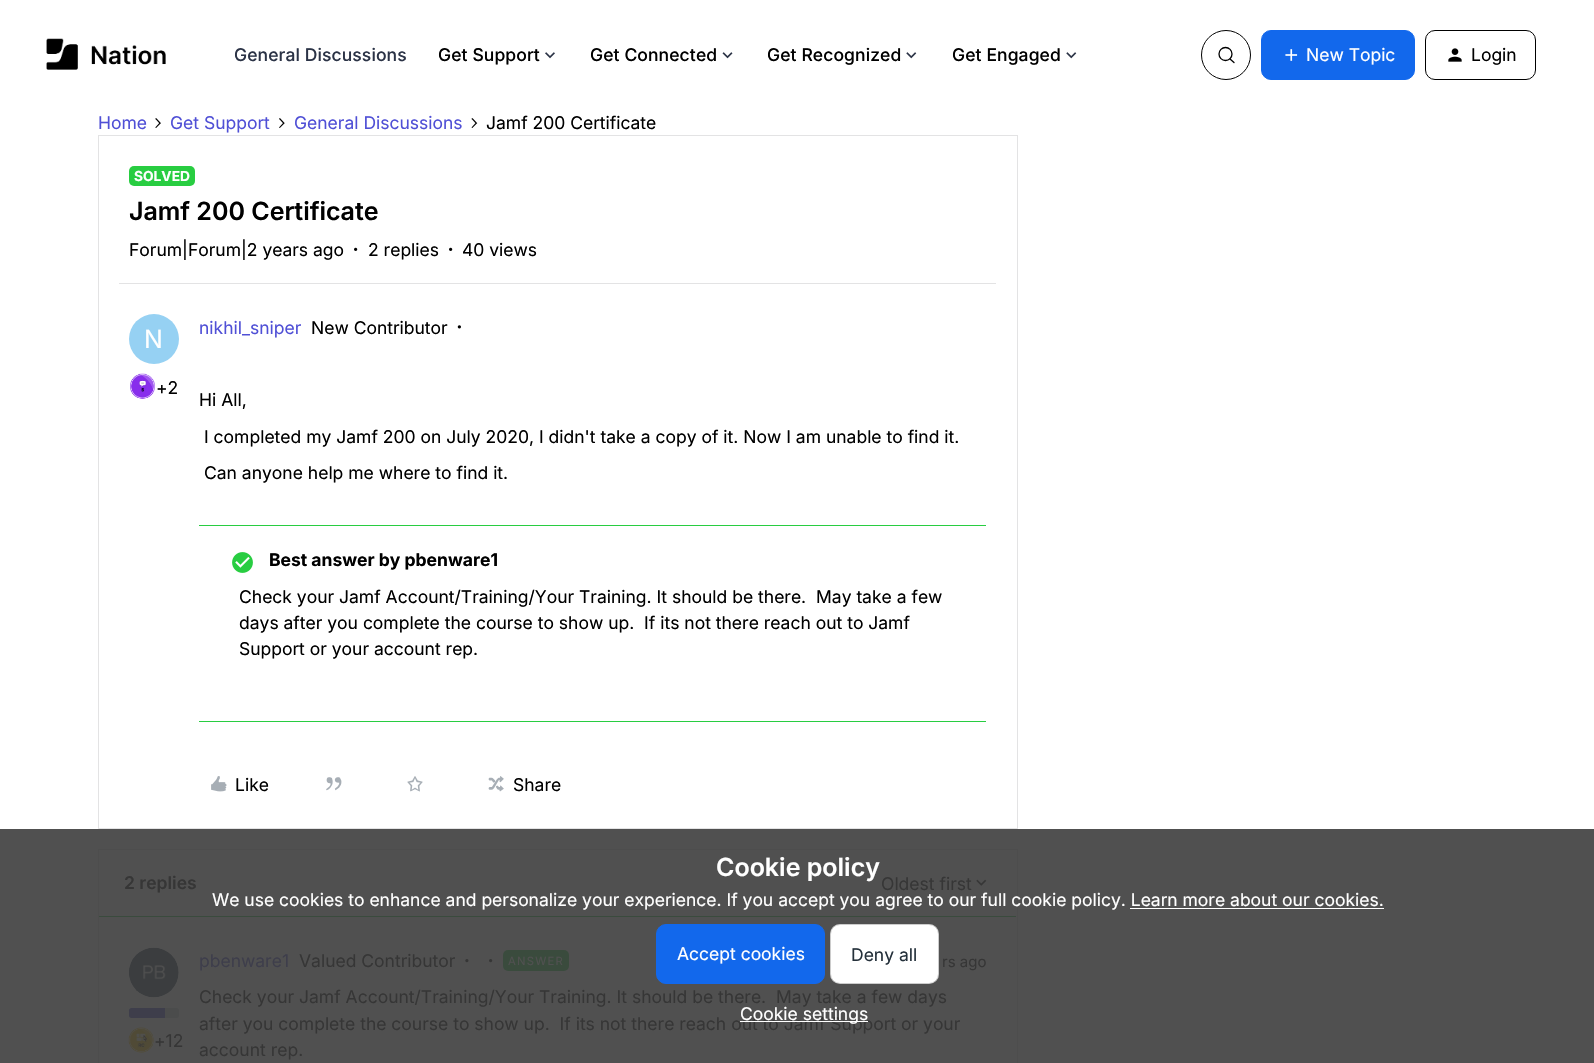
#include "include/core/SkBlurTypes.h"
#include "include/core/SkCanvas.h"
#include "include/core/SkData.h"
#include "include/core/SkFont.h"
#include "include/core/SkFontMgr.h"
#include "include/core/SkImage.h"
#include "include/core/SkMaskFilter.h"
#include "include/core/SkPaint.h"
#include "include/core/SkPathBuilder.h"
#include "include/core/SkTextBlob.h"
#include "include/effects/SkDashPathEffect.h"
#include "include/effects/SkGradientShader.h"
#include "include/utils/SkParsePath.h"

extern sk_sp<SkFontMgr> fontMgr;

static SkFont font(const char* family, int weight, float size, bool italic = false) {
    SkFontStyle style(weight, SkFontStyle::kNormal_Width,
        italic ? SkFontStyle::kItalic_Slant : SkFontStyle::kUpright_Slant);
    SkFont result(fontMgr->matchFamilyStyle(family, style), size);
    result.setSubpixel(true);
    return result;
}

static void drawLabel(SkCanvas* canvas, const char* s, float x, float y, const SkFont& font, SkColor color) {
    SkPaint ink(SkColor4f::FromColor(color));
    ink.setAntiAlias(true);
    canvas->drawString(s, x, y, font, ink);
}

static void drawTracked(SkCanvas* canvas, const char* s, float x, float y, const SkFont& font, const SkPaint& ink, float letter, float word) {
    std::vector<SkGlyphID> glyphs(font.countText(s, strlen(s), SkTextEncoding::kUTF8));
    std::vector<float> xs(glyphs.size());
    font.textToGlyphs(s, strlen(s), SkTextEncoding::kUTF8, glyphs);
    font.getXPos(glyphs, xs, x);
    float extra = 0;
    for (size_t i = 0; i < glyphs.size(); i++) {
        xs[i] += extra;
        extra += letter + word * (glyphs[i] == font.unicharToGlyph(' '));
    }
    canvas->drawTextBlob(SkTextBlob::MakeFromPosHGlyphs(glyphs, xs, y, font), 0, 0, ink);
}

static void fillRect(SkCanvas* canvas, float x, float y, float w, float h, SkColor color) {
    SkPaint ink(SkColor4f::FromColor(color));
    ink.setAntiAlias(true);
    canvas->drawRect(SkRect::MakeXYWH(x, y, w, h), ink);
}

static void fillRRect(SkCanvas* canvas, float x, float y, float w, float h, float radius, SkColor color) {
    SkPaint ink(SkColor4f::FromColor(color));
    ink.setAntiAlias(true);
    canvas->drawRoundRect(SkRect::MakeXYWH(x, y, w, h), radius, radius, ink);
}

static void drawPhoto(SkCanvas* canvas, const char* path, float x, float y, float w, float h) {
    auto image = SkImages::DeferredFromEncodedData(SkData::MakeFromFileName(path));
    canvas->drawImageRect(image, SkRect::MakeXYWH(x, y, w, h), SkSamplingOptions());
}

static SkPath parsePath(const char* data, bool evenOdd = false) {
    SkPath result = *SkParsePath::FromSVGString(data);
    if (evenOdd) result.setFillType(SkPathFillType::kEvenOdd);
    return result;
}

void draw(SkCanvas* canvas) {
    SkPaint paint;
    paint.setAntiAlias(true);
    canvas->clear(0xFFFFFFFF);
    fillRect(canvas, 0, 829, 1594, 234, 0xFF505050);
    drawPhoto(canvas, "assets/img1.png", 46, 38, 120, 32);
    SkFont font1 = font("Inter", 500, 17.5f);
    paint.setColor(0xFF2B3346);
    drawTracked(canvas, "General Discussions", 234, 61, font1, paint, 0.1f, 0);
    paint.setColor(0xFF000000);
    drawTracked(canvas, "Get Support", 438, 61, font1, paint, 0.1f, 0);
    drawPhoto(canvas, "assets/img2.png", 545, 52, 10, 7);
    drawTracked(canvas, "Get Connected", 590, 61, font1, paint, 0.1f, 0);
    drawPhoto(canvas, "assets/img3.png", 722, 52, 11, 7);
    drawTracked(canvas, "Get Recognized", 767, 61, font1, paint, 0.1f, 0);
    drawPhoto(canvas, "assets/img4.png", 906, 52, 11, 7);
    drawTracked(canvas, "Get Engaged", 952, 61, font1, paint, 0.1f, 0);
    drawPhoto(canvas, "assets/img4.png", 1066, 52, 11, 7);
    paint.setStroke(true);
    paint.setStrokeWidth(1);
    canvas->drawCircle(1226, 55, 24.5f, paint);
    paint.setStrokeWidth(1.3f);
    canvas->drawCircle(1225.5f, 54, 6.5f, paint);
    paint.setStrokeCap(SkPaint::kRound_Cap);
    canvas->drawPath(parsePath("M1230 59L1234 62.5"), paint);
    paint.setStroke(false);
    paint.setColor(0xFF1268EC);
    canvas->drawRoundRect(SkRect::MakeXYWH(1261.5f, 30.5f, 153, 49), 9.5f, 9.5f, paint);
    paint.setStroke(true);
    paint.setStrokeWidth(1);
    paint.setStrokeCap(SkPaint::kButt_Cap);
    canvas->drawRoundRect(SkRect::MakeXYWH(1261.5f, 30.5f, 153, 49), 9.5f, 9.5f, paint);
    drawPhoto(canvas, "assets/img5.png", 1285, 49, 13, 12);
    SkFont font2 = font("Inter", 400, 17.5f);
    drawLabel(canvas, "New Topic", 1306, 61, font2, 0xFFFFFFFF);
    paint.setColor(0xFF000000);
    canvas->drawRoundRect(SkRect::MakeXYWH(1425.5f, 30.5f, 110, 49), 9.5f, 9.5f, paint);
    drawPhoto(canvas, "assets/img6.png", 1448, 48, 14, 14);
    drawLabel(canvas, "Login", 1471, 61, font2, 0xFF000000);
    drawLabel(canvas, "Home", 98, 129, font2, 0xFF5050D6);
    drawPhoto(canvas, "assets/img7.png", 155, 118, 6, 10);
    drawLabel(canvas, "Get Support", 170, 129, font2, 0xFF5050D6);
    drawPhoto(canvas, "assets/img8.png", 279, 118, 6, 10);
    drawLabel(canvas, "General Discussions", 294, 129, font2, 0xFF5050D6);
    drawPhoto(canvas, "assets/img9.png", 471, 118, 7, 10);
    drawLabel(canvas, "Jamf 200 Certificate", 486, 129, font2, 0xFF000000);
    paint.setColor(0xFFE3E3E4);
    canvas->drawRect(SkRect::MakeXYWH(98.5f, 135.5f, 919, 693), paint);
    fillRRect(canvas, 129, 166, 66, 20, 5, 0xFF28CD41);
    SkFont font3 = font("Inter", 700, 13.75f);
    drawLabel(canvas, "SOLVED", 134, 181, font3, 0xFFFFFFFF);
    SkFont font4 = font("Inter", 600, 25);
    drawLabel(canvas, "Jamf 200 Certificate", 129, 220, font4, 0xFF000000);
    drawLabel(canvas, "Forum|Forum|2 years ago", 129, 256, font2, 0xFF000000);
    drawPhoto(canvas, "assets/img10.png", 354, 247, 4, 4);
    drawLabel(canvas, "2 replies", 368, 256, font2, 0xFF000000);
    drawPhoto(canvas, "assets/img10.png", 449, 247, 4, 4);
    drawLabel(canvas, "40 views", 462, 256, font2, 0xFF000000);
    fillRect(canvas, 119, 283, 877, 1, 0xFFE3E3E4);
    paint.setStroke(false);
    paint.setColor(0xFF96D1F3);
    canvas->drawCircle(154, 339, 25, paint);
    SkFont font5 = font("Inter", 400, 25);
    drawLabel(canvas, "N", 144, 348, font5, 0xFFFFFFFF);
    drawPhoto(canvas, "assets/img11.png", 130, 373, 25, 26);
    drawLabel(canvas, "+2", 156, 394, font2, 0xFF000000);
    drawLabel(canvas, "nikhil_sniper", 199, 334, font2, 0xFF5050D6);
    drawLabel(canvas, "New Contributor", 311, 334, font2, 0xFF000000);
    drawPhoto(canvas, "assets/img12.png", 457, 325, 4, 4);
    drawLabel(canvas, "Hi All,", 199, 406, font2, 0xFF000000);
    drawLabel(canvas, "I completed my Jamf 200 on July 2020, I didn't take a copy of it. Now I am unable to find it.", 204, 443, font2, 0xFF000000);
    drawLabel(canvas, "Can anyone help me where to find it.", 204, 479, font2, 0xFF000000);
    fillRect(canvas, 199, 525, 787, 1, 0xFF28CD41);
    fillRect(canvas, 199, 721, 787, 1, 0xFF28CD41);
    drawPhoto(canvas, "assets/img13.png", 232, 552, 21, 21);
    SkFont font6 = font("Inter", 700, 17.5f);
    drawLabel(canvas, "Best answer by pbenware1", 269, 566, font6, 0xFF000000);
    drawLabel(canvas, "Check your Jamf Account/Training/Your Training. It should be there.  May take a few", 239, 603, font2, 0xFF000000);
    drawLabel(canvas, "days after you complete the course to show up.  If its not there reach out to Jamf", 239, 629, font2, 0xFF000000);
    drawLabel(canvas, "Support or your account rep.", 239, 655, font2, 0xFF000000);
    drawPhoto(canvas, "assets/img14.png", 211, 776, 16, 16);
    drawLabel(canvas, "Like", 235, 791, font2, 0xFF000000);
    drawPhoto(canvas, "assets/img15.png", 326, 777, 16, 14);
    drawPhoto(canvas, "assets/img16.png", 407, 776, 16, 16);
    drawPhoto(canvas, "assets/img17.png", 488, 776, 16, 16);
    drawLabel(canvas, "Share", 513, 791, font2, 0xFF000000);
    paint.setStroke(true);
    paint.setColor(0xFF4D4D4D);
    canvas->drawRect(SkRect::MakeXYWH(98.5f, 849.5f, 919, 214), paint);
    SkFont font7 = font("Inter", 600, 17.5f);
    drawLabel(canvas, "2 replies", 124, 889, font7, 0xFF363636);
    drawLabel(canvas, "Oldest first", 881, 890, font2, 0xFF363636);
    drawPhoto(canvas, "assets/img18.png", 976, 879, 11, 7);
    fillRect(canvas, 99, 916, 917, 1, 0xFF3A4B3D);
    drawLabel(canvas, "pbenware1", 199, 967, font2, 0xFF3E3E4B);
    drawLabel(canvas, "Valued Contributor", 299, 967, font2, 0xFF363636);
    drawPhoto(canvas, "assets/img19.png", 465, 959, 4, 4);
    drawPhoto(canvas, "assets/img20.png", 489, 959, 4, 4);
    fillRRect(canvas, 503, 950, 66, 21, 5, 0xFF3A4B3D);
    SkFont font8 = font("Inter", 400, 11.25f);
    paint.setStroke(false);
    paint.setColor(0xFF505050);
    drawTracked(canvas, "ANSWER", 508, 965, font8, paint, 1.25f, 0);
    SkFont font9 = font("Inter", 400, 15);
    drawLabel(canvas, "rs ago", 942, 967, font9, 0xFF363636);
    drawPhoto(canvas, "assets/img21.png", 129, 947, 50, 51);
    fillRRect(canvas, 129, 1008, 50, 10, 2.5f, 0xFF4B4C4C);
    paint.setColor(0xFF3E3E4B);
    canvas->drawPath(parsePath("M131.5 1008H165V1018H131.5C130 1018 129 1017 129 1015.5V1010.5C129 1009 130 1008 131.5 1008Z"), paint);
    drawPhoto(canvas, "assets/img22.png", 128, 1027, 26, 26);
    drawLabel(canvas, "+12", 154, 1047, font2, 0xFF363636);
    drawLabel(canvas, "Check your Jamf Account/Training/Your Training. It should be there.  May take a few days", 199, 1003, font2, 0xFF363636);
    drawLabel(canvas, "after you complete the course to show up.  If its not there reach out to Jamf Support or your", 199, 1030, font2, 0xFF363636);
    drawLabel(canvas, "account rep.", 199, 1056, font2, 0xFF363636);
    drawLabel(canvas, "Cookie policy", 716, 876, font4, 0xFFFFFFFF);
    drawLabel(canvas, "We use cookies to enhance and personalize your experience. If you accept you agree to our full cookie policy. Learn more about our cookies.", 212, 906, font2, 0xFFFFFFFF);
    fillRect(canvas, 1130, 908, 254, 1, 0xFFFFFFFF);
    paint.setColor(0xFF1268EC);
    canvas->drawRoundRect(SkRect::MakeXYWH(656.5f, 924.5f, 168, 59), 9.5f, 9.5f, paint);
    paint.setStroke(true);
    canvas->drawRoundRect(SkRect::MakeXYWH(656.5f, 924.5f, 168, 59), 9.5f, 9.5f, paint);
    drawLabel(canvas, "Accept cookies", 677, 960, font2, 0xFFFFFFFF);
    fillRRect(canvas, 830, 924, 109, 60, 10, 0xFFFFFFFF);
    paint.setColor(0x33000000);
    canvas->drawRoundRect(SkRect::MakeXYWH(830.5f, 924.5f, 108, 59), 9.5f, 9.5f, paint);
    drawLabel(canvas, "Deny all", 851, 961, font2, 0xFF25313B);
    fillRect(canvas, 740, 1021, 128, 1, 0xFFFFFFFF);
    drawLabel(canvas, "Cookie settings", 740, 1020, font2, 0xFFFFFFFF);
}
